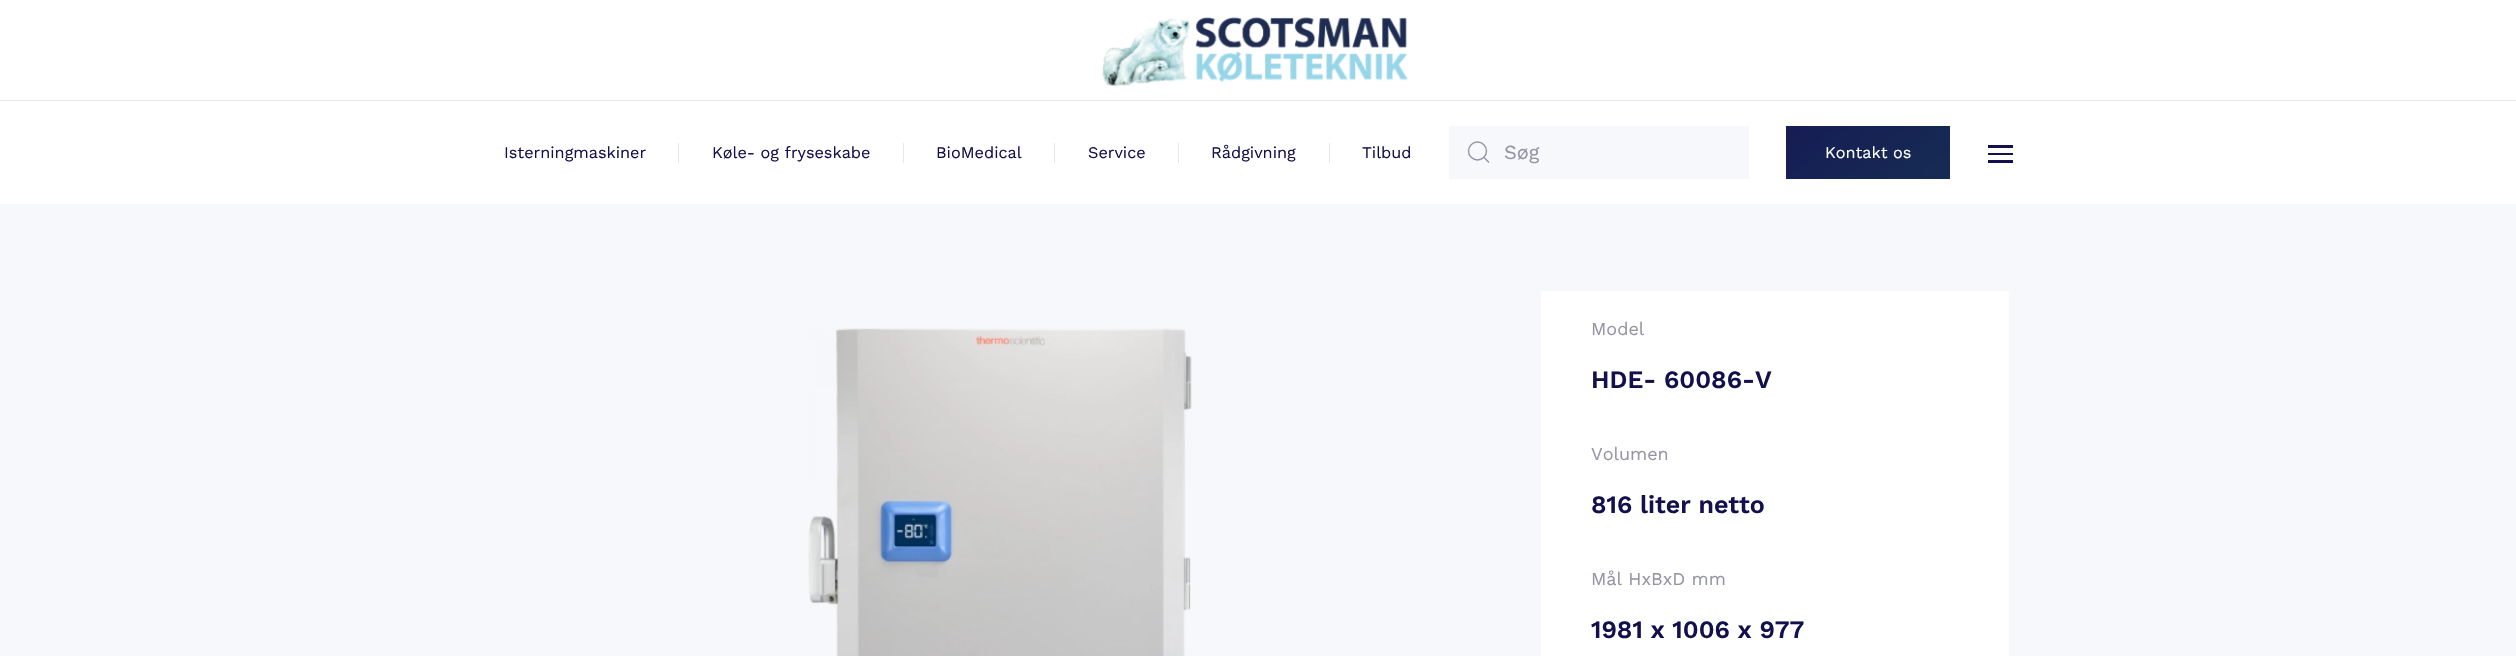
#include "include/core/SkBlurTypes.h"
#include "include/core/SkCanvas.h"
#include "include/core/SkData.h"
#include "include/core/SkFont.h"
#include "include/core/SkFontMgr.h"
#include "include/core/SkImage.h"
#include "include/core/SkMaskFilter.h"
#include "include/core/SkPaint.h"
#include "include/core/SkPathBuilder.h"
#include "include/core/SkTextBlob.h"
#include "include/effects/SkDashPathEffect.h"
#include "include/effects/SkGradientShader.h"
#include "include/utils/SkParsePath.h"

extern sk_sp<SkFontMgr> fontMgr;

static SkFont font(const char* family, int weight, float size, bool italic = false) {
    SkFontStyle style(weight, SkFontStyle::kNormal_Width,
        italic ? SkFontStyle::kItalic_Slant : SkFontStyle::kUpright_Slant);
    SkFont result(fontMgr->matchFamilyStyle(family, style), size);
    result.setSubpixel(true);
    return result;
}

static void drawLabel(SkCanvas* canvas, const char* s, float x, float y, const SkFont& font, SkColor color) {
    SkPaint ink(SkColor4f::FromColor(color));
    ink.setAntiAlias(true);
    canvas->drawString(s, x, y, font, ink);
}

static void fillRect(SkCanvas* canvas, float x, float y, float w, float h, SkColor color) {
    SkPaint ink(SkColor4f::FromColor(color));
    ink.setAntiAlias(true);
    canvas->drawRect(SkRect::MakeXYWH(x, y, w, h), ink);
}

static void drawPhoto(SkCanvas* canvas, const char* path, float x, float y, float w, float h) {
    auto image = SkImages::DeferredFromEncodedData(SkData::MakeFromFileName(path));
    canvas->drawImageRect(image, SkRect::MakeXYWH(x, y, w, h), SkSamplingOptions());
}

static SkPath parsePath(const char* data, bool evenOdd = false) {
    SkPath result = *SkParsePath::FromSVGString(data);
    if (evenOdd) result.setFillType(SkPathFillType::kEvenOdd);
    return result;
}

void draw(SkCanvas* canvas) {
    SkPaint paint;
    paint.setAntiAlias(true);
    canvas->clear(0xFFFFFFFF);
    fillRect(canvas, 0, 100, 2516, 1, 0xFFE7E8EB);
    drawPhoto(canvas, "assets/img1.png", 1102, 17, 306, 70);
    SkFont font1 = font("Work Sans", 400, 16.25f);
    drawLabel(canvas, "Isterningmaskiner", 504, 158, font1, 0xFF140F4D);
    fillRect(canvas, 678, 143, 1, 20, 0xFFE7E8EB);
    drawLabel(canvas, "Køle- og fryseskabe", 712, 158, font1, 0xFF140F4D);
    fillRect(canvas, 903, 143, 1, 20, 0xFFE7E8EB);
    drawLabel(canvas, "BioMedical", 936, 158, font1, 0xFF140F4D);
    fillRect(canvas, 1054, 143, 1, 20, 0xFFE7E8EB);
    drawLabel(canvas, "Service", 1088, 158, font1, 0xFF140F4D);
    fillRect(canvas, 1178, 143, 1, 20, 0xFFE7E8EB);
    drawLabel(canvas, "Rådgivning", 1211, 158, font1, 0xFF140F4D);
    fillRect(canvas, 1329, 143, 1, 20, 0xFFE7E8EB);
    drawLabel(canvas, "Tilbud", 1362, 158, font1, 0xFF140F4D);
    fillRect(canvas, 1449, 126, 300, 53, 0xFFF6F8FB);
    paint.setStroke(true);
    paint.setStrokeWidth(1.4f);
    paint.setColor(0xFF9494A5);
    canvas->drawCircle(1477.5f, 151, 9, paint);
    canvas->drawPath(parsePath("M1484 157.5L1489 162.5Z"), paint);
    SkFont font2 = font("Work Sans", 400, 20);
    drawLabel(canvas, "Søg", 1504, 159, font2, 0xFF9494A5);
    paint.setStroke(false);
    {
        const SkColor colors[] = {0xFF162C54, 0xFF161C54};
        const float stops[] = {0, 1};
        const SkPoint ends[] = {{1915, 208}, {1821, 97}};
        paint.setShader(SkGradientShader::MakeLinear(ends, colors, stops, 2, SkTileMode::kClamp));
        paint.setAlpha(255);
    }
    canvas->drawRect(SkRect::MakeXYWH(1786, 126, 164, 53), paint);
    drawLabel(canvas, "Kontakt os", 1825, 158, font1, 0xFFFFFFFF);
    fillRect(canvas, 1988, 145, 25, 3, 0xFF140F4D);
    fillRect(canvas, 1988, 153, 25, 2, 0xFF140F4D);
    fillRect(canvas, 1988, 160, 25, 3, 0xFF140F4D);
    fillRect(canvas, 0, 204, 2516, 452, 0xFFF6F8FB);
    drawPhoto(canvas, "assets/img2.png", 808, 328, 384, 328);
    fillRect(canvas, 1541, 291, 468, 365, 0xFFFFFFFF);
    SkFont font3 = font("Work Sans", 400, 18);
    drawLabel(canvas, "Model", 1591, 335, font3, 0xFF9494A5);
    SkFont font4 = font("Work Sans", 600, 25);
    drawLabel(canvas, "HDE- 60086-V", 1591, 388, font4, 0xFF140F4D);
    drawLabel(canvas, "Volumen", 1591, 460, font3, 0xFF9494A5);
    drawLabel(canvas, "816 liter netto", 1591, 513, font4, 0xFF140F4D);
    drawLabel(canvas, "Mål HxBxD mm", 1591, 585, font3, 0xFF9494A5);
    drawLabel(canvas, "1981 x 1006 x 977", 1591, 638, font4, 0xFF140F4D);
}
